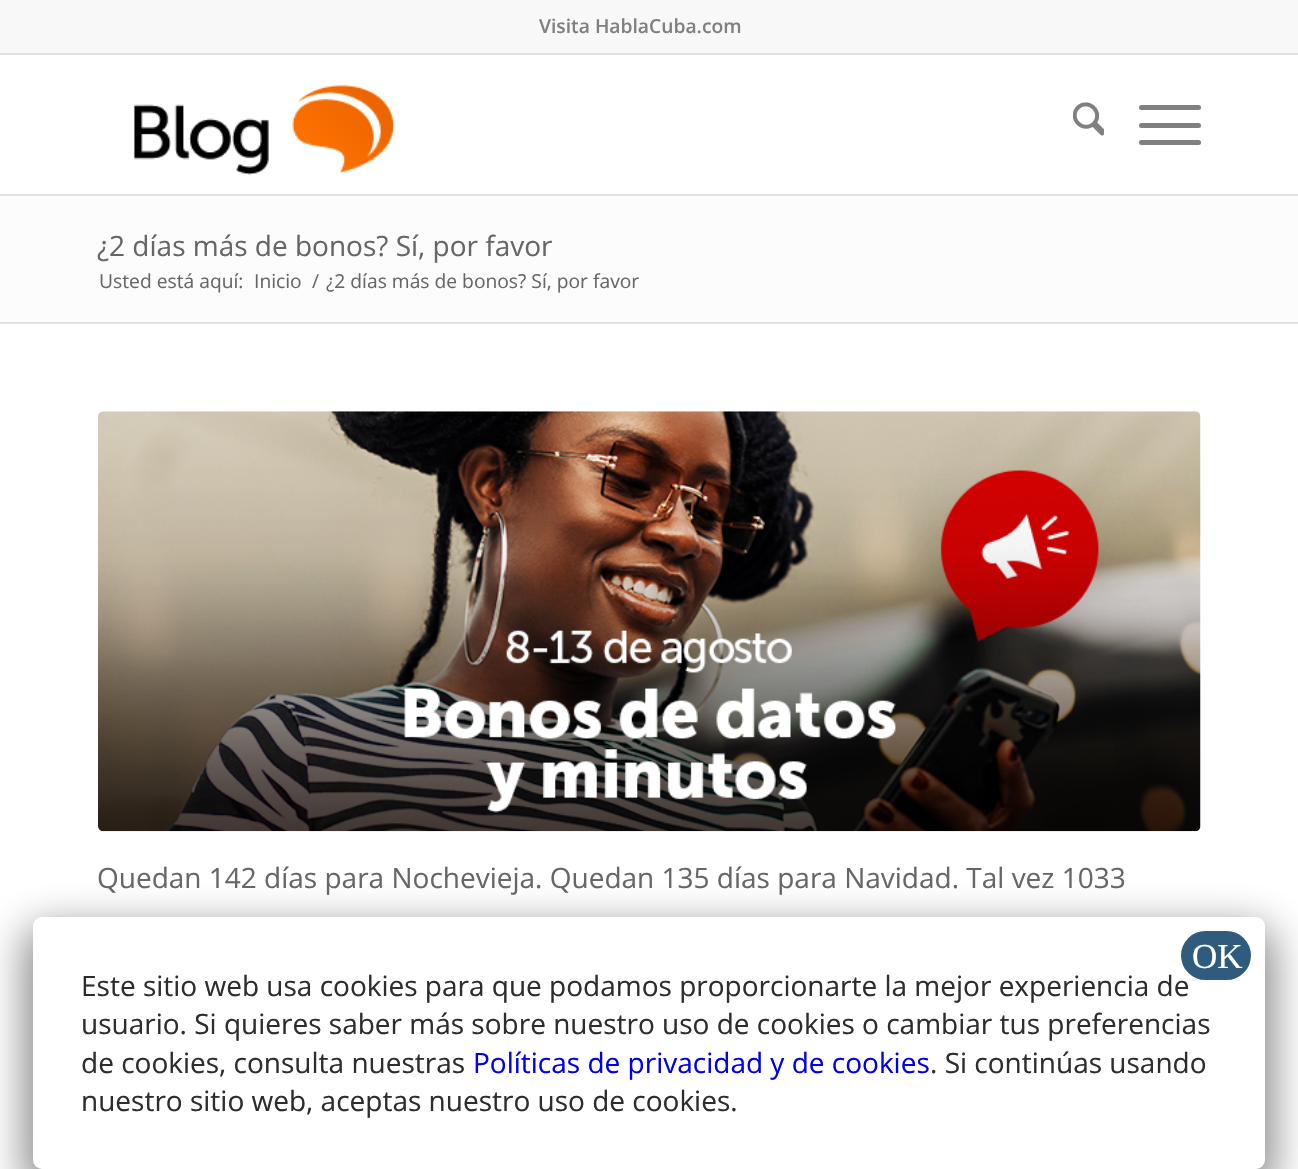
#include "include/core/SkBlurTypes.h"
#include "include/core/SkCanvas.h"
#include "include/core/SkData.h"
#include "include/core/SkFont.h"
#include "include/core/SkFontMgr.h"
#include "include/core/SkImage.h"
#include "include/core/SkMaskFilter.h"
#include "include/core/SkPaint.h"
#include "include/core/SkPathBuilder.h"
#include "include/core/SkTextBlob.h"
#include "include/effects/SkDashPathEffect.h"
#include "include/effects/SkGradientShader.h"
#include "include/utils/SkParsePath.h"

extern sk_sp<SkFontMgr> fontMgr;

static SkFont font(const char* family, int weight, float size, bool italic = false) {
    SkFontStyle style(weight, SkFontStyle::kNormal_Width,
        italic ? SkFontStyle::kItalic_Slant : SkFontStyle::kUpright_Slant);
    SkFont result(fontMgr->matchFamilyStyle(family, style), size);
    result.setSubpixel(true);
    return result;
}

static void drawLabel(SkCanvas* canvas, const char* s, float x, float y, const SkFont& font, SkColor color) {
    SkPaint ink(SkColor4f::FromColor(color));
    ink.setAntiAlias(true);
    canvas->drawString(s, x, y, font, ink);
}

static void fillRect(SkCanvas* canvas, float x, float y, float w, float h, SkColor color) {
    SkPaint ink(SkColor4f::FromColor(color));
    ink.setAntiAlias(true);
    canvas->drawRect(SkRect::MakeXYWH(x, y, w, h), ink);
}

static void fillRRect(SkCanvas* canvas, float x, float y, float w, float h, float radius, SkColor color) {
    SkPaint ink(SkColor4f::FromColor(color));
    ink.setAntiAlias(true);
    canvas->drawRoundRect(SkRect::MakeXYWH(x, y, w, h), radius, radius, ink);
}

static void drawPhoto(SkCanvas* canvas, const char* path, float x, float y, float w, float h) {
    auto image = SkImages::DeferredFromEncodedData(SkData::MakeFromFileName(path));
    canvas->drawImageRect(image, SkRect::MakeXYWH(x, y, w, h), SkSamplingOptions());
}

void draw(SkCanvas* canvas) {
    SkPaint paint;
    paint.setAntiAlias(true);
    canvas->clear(0xFFFFFFFF);
    fillRect(canvas, 0, 0, 1298, 53, 0xFFF8F8F8);
    fillRect(canvas, 0, 53, 1298, 2, 0xFFE1E1E1);
    SkFont font1 = font("Open Sans", 600, 19.25f);
    drawLabel(canvas, "Visita HablaCuba.com", 539, 33, font1, 0xFF808080);
    fillRect(canvas, 0, 194, 1298, 2, 0xFFE1E1E1);
    drawPhoto(canvas, "assets/img1.png", 134, 84, 261, 91);
    drawPhoto(canvas, "assets/img2.png", 1073, 102, 31, 34);
    fillRRect(canvas, 1139, 123, 62, 5, 2.5f, 0xFF808080);
    fillRRect(canvas, 1139, 105, 62, 5, 2.5f, 0xFF808080);
    fillRRect(canvas, 1139, 140, 62, 5, 2.5f, 0xFF808080);
    fillRect(canvas, 0, 196, 1298, 126, 0xFFFCFCFC);
    SkFont font2 = font("Open Sans", 400, 28);
    drawLabel(canvas, "¿2 días más de bonos? Sí, por favor", 97, 256, font2, 0xFF666666);
    SkFont font3 = font("Open Sans", 400, 19.25f);
    drawLabel(canvas, "Usted está aquí:", 99, 288, font3, 0xFF666666);
    drawLabel(canvas, "Inicio", 254, 288, font3, 0xFF666666);
    drawLabel(canvas, "/", 312, 288, font3, 0xFF666666);
    drawLabel(canvas, "¿2 días más de bonos? Sí, por favor", 326, 288, font3, 0xFF666666);
    fillRect(canvas, 0, 322, 1298, 2, 0xFFE1E1E1);
    drawPhoto(canvas, "assets/img3.png", 98, 411, 1103, 421);
    drawLabel(canvas, "Quedan 142 días para Nochevieja. Quedan 135 días para Navidad. Tal vez 1033", 97, 888, font2, 0xFF666666);
    paint.setColor(0x80020202);
    paint.setMaskFilter(SkMaskFilter::MakeBlur(kNormal_SkBlurStyle, 22));
    canvas->drawRoundRect(SkRect::MakeXYWH(26, 928, 1246, 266), 16, 16, paint);
    paint.setMaskFilter(nullptr);
    fillRRect(canvas, 33, 917, 1232, 252, 9, 0xFFFFFFFF);
    drawLabel(canvas, "Este sitio web usa cookies para que podamos proporcionarte la mejor experiencia de", 81, 996, font2, 0xFF2D2D2D);
    fillRRect(canvas, 1181, 931, 70, 49, 24.5f, 0xFF315B7C);
    SkFont font4 = font("Liberation Serif", 400, 35);
    drawLabel(canvas, "OK", 1192, 968, font4, 0xFFFFFFFF);
    drawLabel(canvas, "usuario. Si quieres saber más sobre nuestro uso de cookies o cambiar tus preferencias", 81, 1034, font2, 0xFF2D2D2D);
    drawLabel(canvas, "de cookies, consulta nuestras", 81, 1073, font2, 0xFF2D2D2D);
    drawLabel(canvas, "Políticas de privacidad y de cookies", 473, 1073, font2, 0xFF0000EE);
    drawLabel(canvas, ". Si continúas usando", 930, 1073, font2, 0xFF2D2D2D);
    drawLabel(canvas, "nuestro sitio web, aceptas nuestro uso de cookies.", 81, 1111, font2, 0xFF2D2D2D);
}
